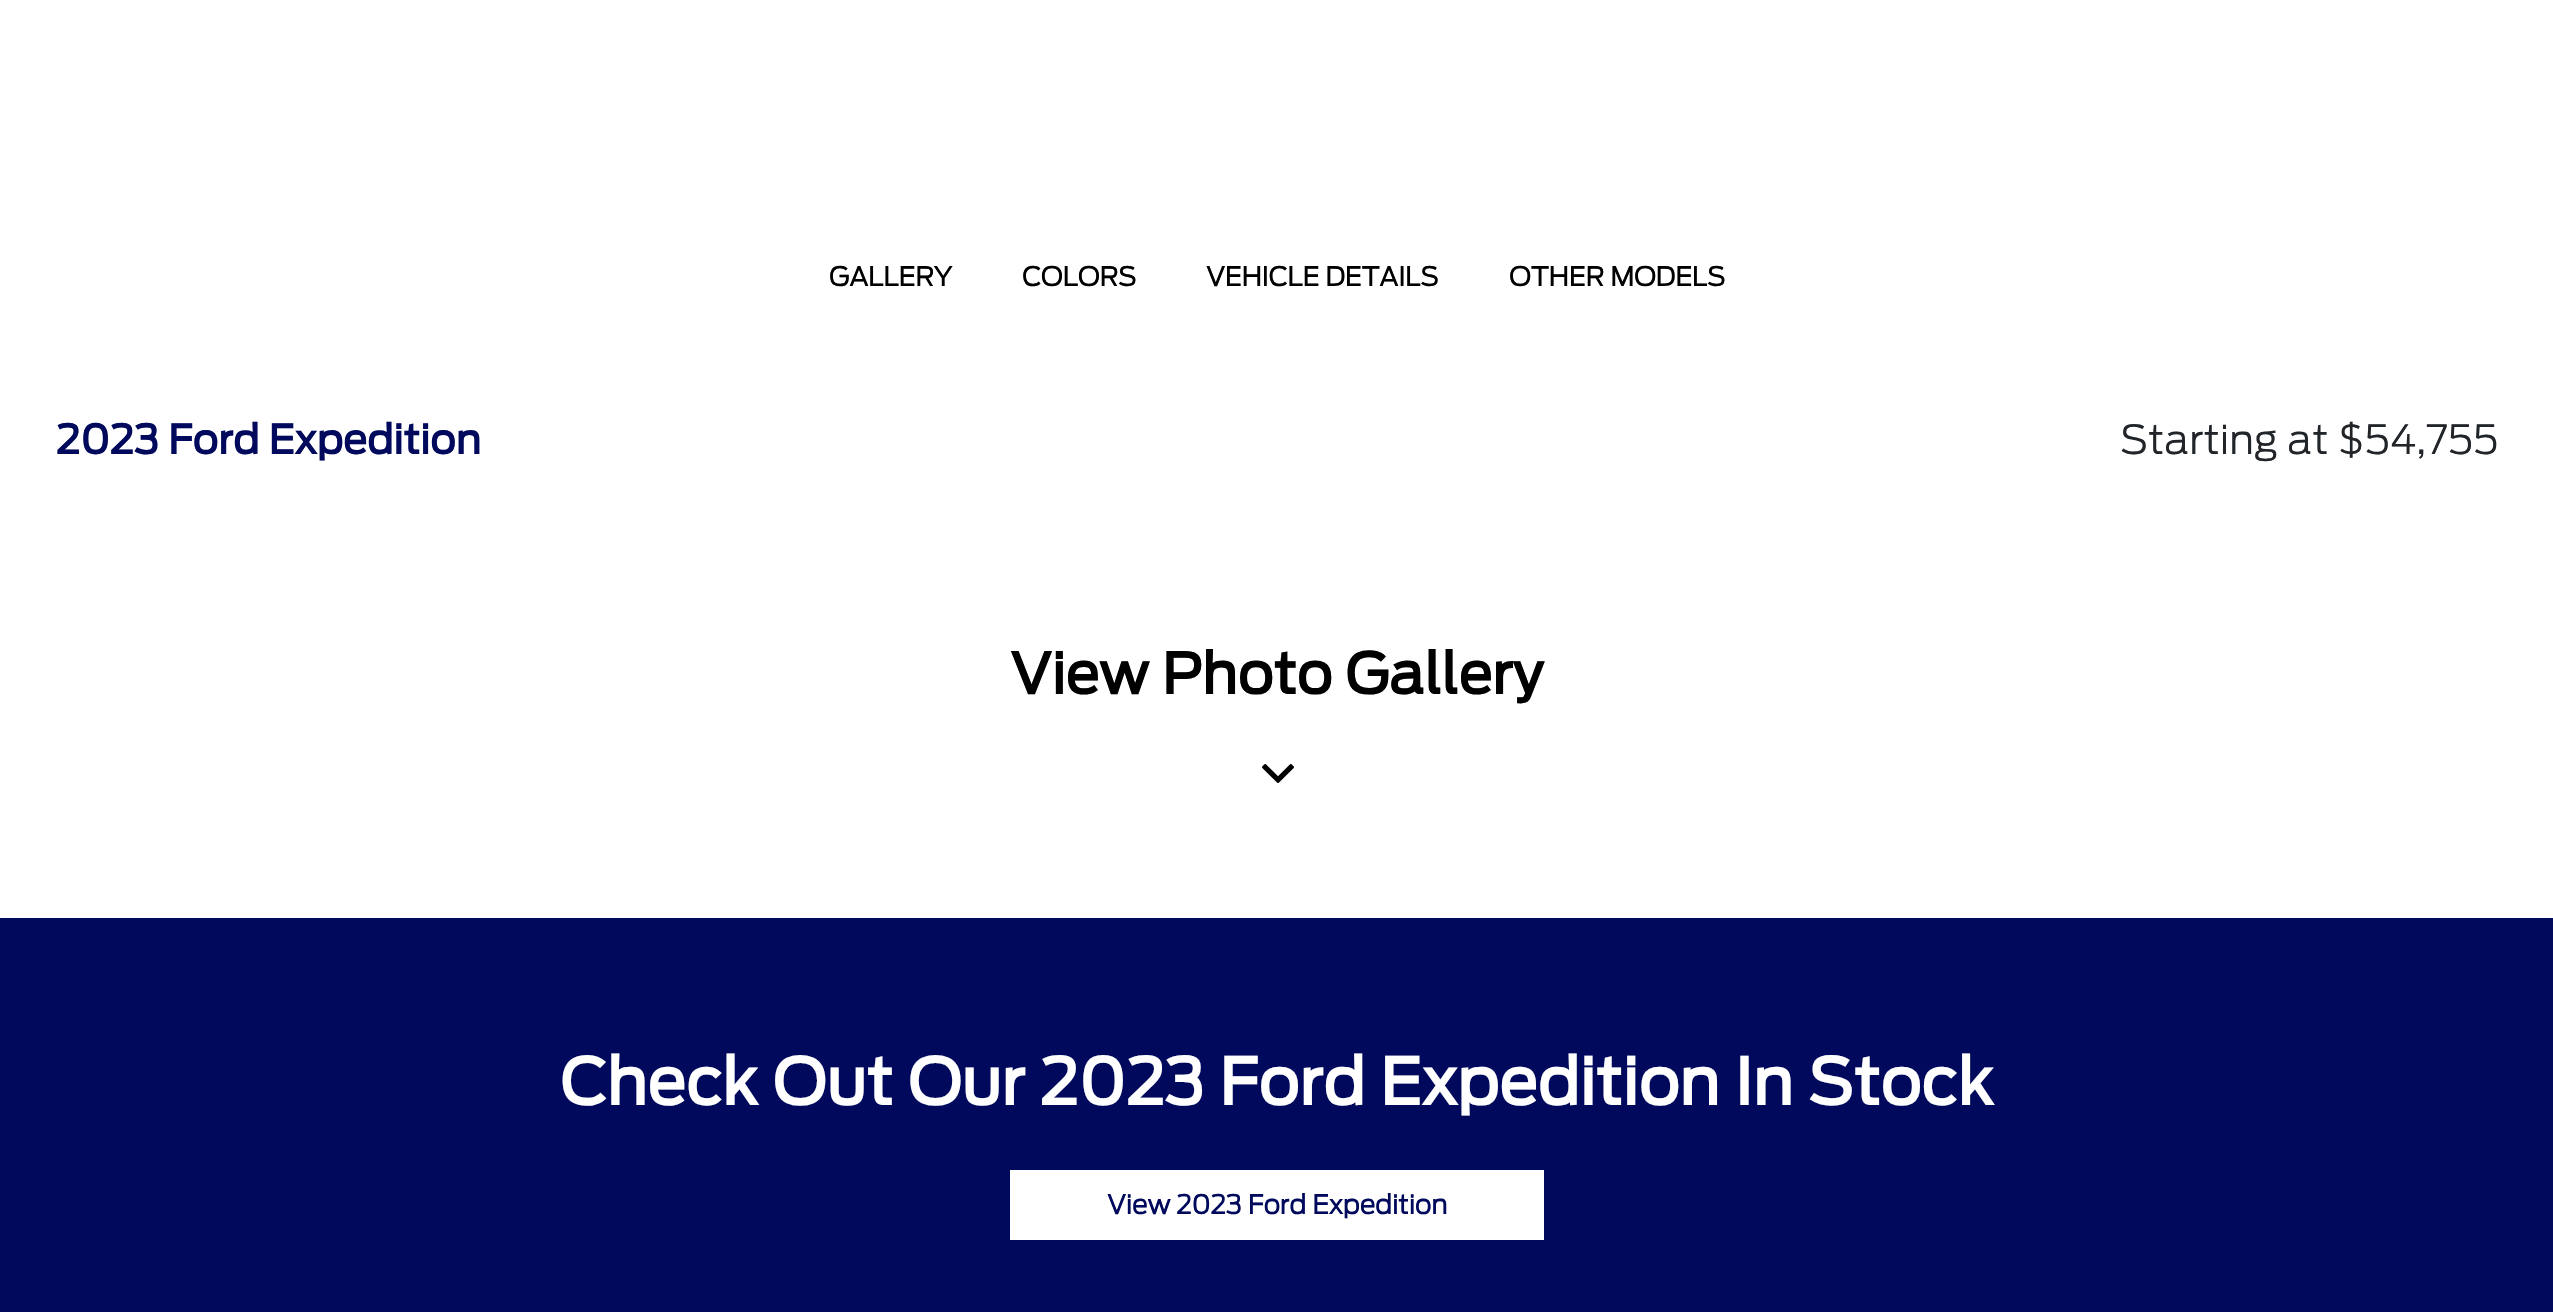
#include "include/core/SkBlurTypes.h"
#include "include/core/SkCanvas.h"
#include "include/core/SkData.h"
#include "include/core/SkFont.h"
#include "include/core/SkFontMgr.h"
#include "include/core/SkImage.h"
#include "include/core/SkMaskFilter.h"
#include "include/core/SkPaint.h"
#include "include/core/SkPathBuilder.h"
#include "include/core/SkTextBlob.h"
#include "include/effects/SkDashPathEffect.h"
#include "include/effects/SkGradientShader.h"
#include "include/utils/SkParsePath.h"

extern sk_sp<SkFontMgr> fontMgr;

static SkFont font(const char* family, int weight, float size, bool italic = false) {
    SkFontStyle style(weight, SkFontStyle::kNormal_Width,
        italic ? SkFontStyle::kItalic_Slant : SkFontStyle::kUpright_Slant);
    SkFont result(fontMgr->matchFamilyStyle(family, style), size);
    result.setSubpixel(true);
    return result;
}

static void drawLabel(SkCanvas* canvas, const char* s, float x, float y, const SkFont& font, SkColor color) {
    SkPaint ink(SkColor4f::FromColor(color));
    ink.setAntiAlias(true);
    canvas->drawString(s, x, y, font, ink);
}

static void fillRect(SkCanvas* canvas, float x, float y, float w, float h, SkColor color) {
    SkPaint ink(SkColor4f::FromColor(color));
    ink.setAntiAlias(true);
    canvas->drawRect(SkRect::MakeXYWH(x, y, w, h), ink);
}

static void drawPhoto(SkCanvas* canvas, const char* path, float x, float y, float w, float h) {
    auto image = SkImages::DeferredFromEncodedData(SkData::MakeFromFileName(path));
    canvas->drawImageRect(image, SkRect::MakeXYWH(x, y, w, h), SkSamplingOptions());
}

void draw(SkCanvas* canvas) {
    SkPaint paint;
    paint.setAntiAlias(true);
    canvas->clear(0xFFFFFFFF);
    SkFont font1 = font("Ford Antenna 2", 700, 26);
    drawLabel(canvas, "GALLERY", 829, 286, font1, 0xFF000000);
    drawLabel(canvas, "COLORS", 1022, 286, font1, 0xFF000000);
    drawLabel(canvas, "VEHICLE DETAILS", 1206, 286, font1, 0xFF000000);
    drawLabel(canvas, "OTHER MODELS", 1509, 286, font1, 0xFF000000);
    SkFont font2 = font("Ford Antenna", 700, 40);
    drawLabel(canvas, "2023 Ford Expedition", 56, 454, font2, 0xFF00095B);
    SkFont font3 = font("Ford Antenna", 300, 40);
    drawLabel(canvas, "Starting at $54,755", 2120, 454, font3, 0xFF212529);
    SkFont font4 = font("Ford Antenna", 700, 56);
    drawLabel(canvas, "View Photo Gallery", 1010, 694, font4, 0xFF000000);
    drawPhoto(canvas, "assets/img1.png", 1262, 764, 32, 19);
    fillRect(canvas, 0, 918, 2553, 394, 0xFF00095B);
    SkFont font5 = font("Ford Antenna", 700, 64);
    drawLabel(canvas, "Check Out Our 2023 Ford Expedition In Stock", 560, 1105, font5, 0xFFFFFFFF);
    fillRect(canvas, 1010, 1170, 534, 70, 0xFFFFFFFF);
    drawLabel(canvas, "View 2023 Ford Expedition", 1107, 1214, font1, 0xFF00095B);
}
